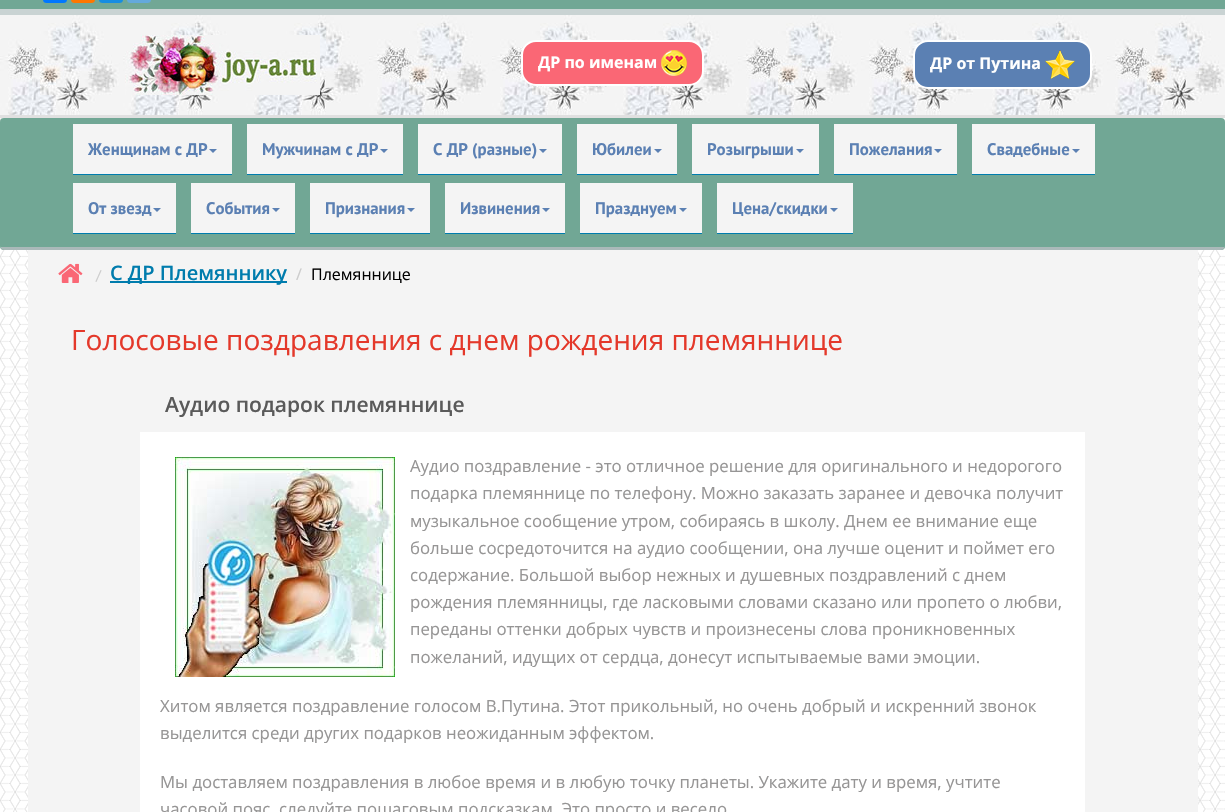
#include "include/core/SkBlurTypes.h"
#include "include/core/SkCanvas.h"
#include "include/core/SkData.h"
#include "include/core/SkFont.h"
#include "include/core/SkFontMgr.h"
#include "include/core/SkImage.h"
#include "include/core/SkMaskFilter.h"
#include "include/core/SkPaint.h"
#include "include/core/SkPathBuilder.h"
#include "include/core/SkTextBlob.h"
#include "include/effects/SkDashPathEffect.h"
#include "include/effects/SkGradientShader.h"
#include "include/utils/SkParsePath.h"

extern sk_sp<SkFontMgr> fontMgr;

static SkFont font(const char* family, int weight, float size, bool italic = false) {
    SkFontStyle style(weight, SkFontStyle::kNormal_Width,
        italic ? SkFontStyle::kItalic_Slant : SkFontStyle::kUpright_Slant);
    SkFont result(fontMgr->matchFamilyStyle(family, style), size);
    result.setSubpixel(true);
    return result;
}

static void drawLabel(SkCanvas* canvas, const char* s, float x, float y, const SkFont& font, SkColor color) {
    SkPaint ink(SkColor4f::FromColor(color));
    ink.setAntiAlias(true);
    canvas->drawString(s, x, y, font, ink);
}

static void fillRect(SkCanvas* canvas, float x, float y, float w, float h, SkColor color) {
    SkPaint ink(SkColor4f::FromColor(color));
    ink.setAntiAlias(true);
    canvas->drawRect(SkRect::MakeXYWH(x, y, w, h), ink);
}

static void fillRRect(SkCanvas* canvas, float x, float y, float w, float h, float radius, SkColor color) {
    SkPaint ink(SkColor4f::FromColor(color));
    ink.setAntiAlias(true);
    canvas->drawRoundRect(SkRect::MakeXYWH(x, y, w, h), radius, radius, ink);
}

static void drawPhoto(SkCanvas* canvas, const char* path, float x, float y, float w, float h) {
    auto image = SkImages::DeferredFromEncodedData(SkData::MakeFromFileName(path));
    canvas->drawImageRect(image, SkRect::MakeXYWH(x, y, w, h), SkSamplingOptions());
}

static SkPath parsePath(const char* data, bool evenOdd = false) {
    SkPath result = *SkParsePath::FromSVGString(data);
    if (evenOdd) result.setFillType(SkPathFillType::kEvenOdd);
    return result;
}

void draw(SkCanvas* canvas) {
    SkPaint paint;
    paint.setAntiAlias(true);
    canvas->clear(0xFFFFFFFF);
    drawPhoto(canvas, "assets/img1.png", 0, 118, 1225, 694);
    fillRect(canvas, 0, 0, 1225, 9, 0xFF71A795);
    fillRRect(canvas, 43, -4, 24, 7, 4, 0xFF0077FF);
    fillRRect(canvas, 71, -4, 24, 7, 4, 0xFFFF7700);
    fillRRect(canvas, 99, -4, 24, 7, 4, 0xFF168DE2);
    fillRRect(canvas, 127, -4, 24, 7, 4, 0xFF64A9DC);
    drawPhoto(canvas, "assets/img2.png", 0, 15, 1225, 100);
    fillRect(canvas, 0, 9, 1225, 6, 0xFFC9D3D3);
    fillRect(canvas, 0, 115, 1225, 3, 0xFFE0E0E0);
    drawPhoto(canvas, "assets/img3.png", 125, 35, 195, 60);
    paint.setColor(0xFFFA6775);
    canvas->drawRoundRect(SkRect::MakeXYWH(522, 41, 181, 44), 14, 14, paint);
    paint.setStroke(true);
    paint.setStrokeWidth(2);
    paint.setColor(0xFFFFFFFF);
    canvas->drawRoundRect(SkRect::MakeXYWH(522, 41, 181, 44), 14, 14, paint);
    SkFont font1 = font("Open Sans", 700, 16);
    drawLabel(canvas, "ДР по именам", 538, 68, font1, 0xFFFFFFFF);
    drawPhoto(canvas, "assets/img4.png", 661, 50, 26, 26);
    paint.setStroke(false);
    paint.setColor(0xFF5B80B3);
    canvas->drawRoundRect(SkRect::MakeXYWH(914, 41, 177, 47), 14, 14, paint);
    paint.setStroke(true);
    paint.setColor(0xFFFFFFFF);
    canvas->drawRoundRect(SkRect::MakeXYWH(914, 41, 177, 47), 14, 14, paint);
    drawLabel(canvas, "ДР от Путина", 930, 69, font1, 0xFFFFFFFF);
    drawPhoto(canvas, "assets/img5.png", 1045, 50, 30, 29);
    fillRRect(canvas, 0, 118, 1225, 132, 4, 0xFF71A795);
    paint.setStroke(false);
    paint.setColor(0xFFAAB9B9);
    canvas->drawPath(parsePath("M4 250H1221C1222 250 1224 249 1224 248V247H1221H4H1V248C1 249 3 250 4 250Z"), paint);
    fillRect(canvas, 73, 124, 159, 50, 0xFFF4F4F4);
    fillRect(canvas, 73, 174, 159, 1, 0xFF007CAD);
    SkFont font2 = font("PT Sans", 700, 16.8f);
    drawLabel(canvas, "Женщинам с ДР", 88, 155, font2, 0xFF5B80B3);
    paint.setColor(0xFF5B80B3);
    canvas->drawPath(parsePath("M209 149H217L213 153Z"), paint);
    fillRect(canvas, 247, 124, 156, 50, 0xFFF4F4F4);
    fillRect(canvas, 247, 174, 156, 1, 0xFF007CAD);
    drawLabel(canvas, "Мужчинам с ДР", 262, 155, font2, 0xFF5B80B3);
    canvas->drawPath(parsePath("M380 149H388L384 153Z"), paint);
    fillRect(canvas, 418, 124, 144, 50, 0xFFF4F4F4);
    fillRect(canvas, 418, 174, 144, 1, 0xFF007CAD);
    drawLabel(canvas, "С ДР (разные)", 433, 155, font2, 0xFF5B80B3);
    canvas->drawPath(parsePath("M539 149H547L543 153Z"), paint);
    fillRect(canvas, 577, 124, 100, 50, 0xFFF4F4F4);
    fillRect(canvas, 577, 174, 100, 1, 0xFF007CAD);
    drawLabel(canvas, "Юбилеи", 592, 155, font2, 0xFF5B80B3);
    canvas->drawPath(parsePath("M654 149H662L658 153Z"), paint);
    fillRect(canvas, 692, 124, 127, 50, 0xFFF4F4F4);
    fillRect(canvas, 692, 174, 127, 1, 0xFF007CAD);
    drawLabel(canvas, "Розыгрыши", 707, 155, font2, 0xFF5B80B3);
    canvas->drawPath(parsePath("M796 149H804L800 153Z"), paint);
    fillRect(canvas, 834, 124, 123, 50, 0xFFF4F4F4);
    fillRect(canvas, 834, 174, 123, 1, 0xFF007CAD);
    drawLabel(canvas, "Пожелания", 849, 155, font2, 0xFF5B80B3);
    canvas->drawPath(parsePath("M934 149H942L938 153Z"), paint);
    fillRect(canvas, 972, 124, 123, 50, 0xFFF4F4F4);
    fillRect(canvas, 972, 174, 123, 1, 0xFF007CAD);
    drawLabel(canvas, "Свадебные", 987, 155, font2, 0xFF5B80B3);
    canvas->drawPath(parsePath("M1072 149H1080L1076 153Z"), paint);
    fillRect(canvas, 73, 183, 103, 50, 0xFFF4F4F4);
    fillRect(canvas, 73, 233, 103, 1, 0xFF007CAD);
    drawLabel(canvas, "От звезд", 88, 214, font2, 0xFF5B80B3);
    canvas->drawPath(parsePath("M153 208H161L157 212Z"), paint);
    fillRect(canvas, 191, 183, 104, 50, 0xFFF4F4F4);
    fillRect(canvas, 191, 233, 104, 1, 0xFF007CAD);
    drawLabel(canvas, "События", 206, 214, font2, 0xFF5B80B3);
    canvas->drawPath(parsePath("M272 208H280L276 212Z"), paint);
    fillRect(canvas, 310, 183, 120, 50, 0xFFF4F4F4);
    fillRect(canvas, 310, 233, 120, 1, 0xFF007CAD);
    drawLabel(canvas, "Признания", 325, 214, font2, 0xFF5B80B3);
    canvas->drawPath(parsePath("M407 208H415L411 212Z"), paint);
    fillRect(canvas, 445, 183, 120, 50, 0xFFF4F4F4);
    fillRect(canvas, 445, 233, 120, 1, 0xFF007CAD);
    drawLabel(canvas, "Извинения", 460, 214, font2, 0xFF5B80B3);
    canvas->drawPath(parsePath("M542 208H550L546 212Z"), paint);
    fillRect(canvas, 580, 183, 122, 50, 0xFFF4F4F4);
    fillRect(canvas, 580, 233, 122, 1, 0xFF007CAD);
    drawLabel(canvas, "Празднуем", 595, 214, font2, 0xFF5B80B3);
    canvas->drawPath(parsePath("M679 208H687L683 212Z"), paint);
    fillRect(canvas, 717, 183, 136, 50, 0xFFF4F4F4);
    fillRect(canvas, 717, 233, 136, 1, 0xFF007CAD);
    drawLabel(canvas, "Цена/скидки", 732, 214, font2, 0xFF5B80B3);
    canvas->drawPath(parsePath("M830 208H838L834 212Z"), paint);
    fillRect(canvas, 28, 250, 1170, 562, 0xFFF4F4F4);
    drawPhoto(canvas, "assets/img6.png", 58, 263, 25, 20);
    SkFont font3 = font("PT Sans", 400, 14);
    drawLabel(canvas, "/", 96, 280, font3, 0xFFCCCCCC);
    fillRect(canvas, 110, 281, 177, 2, 0xFF007CAD);
    SkFont font4 = font("Open Sans", 600, 20);
    drawLabel(canvas, "С ДР Племяннику", 110, 280, font4, 0xFF007CAD);
    SkFont font5 = font("Open Sans", 400, 16);
    drawLabel(canvas, "/", 296, 280, font5, 0xFFCCCCCC);
    drawLabel(canvas, "Племяннице", 311, 280, font5, 0xFF000000);
    SkFont font6 = font("Open Sans", 400, 28);
    drawLabel(canvas, "Голосовые поздравления с днем рождения племяннице", 71, 350, font6, 0xFFE4382A);
    SkFont font7 = font("Open Sans", 600, 21);
    drawLabel(canvas, "Аудио подарок племяннице", 165, 412, font7, 0xFF5A5A5A);
    fillRect(canvas, 140, 432, 945, 380, 0xFFFFFFFF);
    drawPhoto(canvas, "assets/img7.png", 175, 457, 220, 220);
    SkFont font8 = font("Open Sans", 400, 16.8f);
    drawLabel(canvas, "Аудио поздравление - это отличное решение для оригинального и недорогого", 410, 472, font8, 0xFF969595);
    drawLabel(canvas, "подарка племяннице по телефону. Можно заказать заранее и девочка получит", 410, 499, font8, 0xFF969595);
    drawLabel(canvas, "музыкальное сообщение утром, собираясь в школу. Днем ее внимание еще", 410, 527, font8, 0xFF969595);
    drawLabel(canvas, "больше сосредоточится на аудио сообщении, она лучше оценит и поймет его", 410, 554, font8, 0xFF969595);
    drawLabel(canvas, "содержание. Большой выбор нежных и душевных поздравлений с днем", 410, 581, font8, 0xFF969595);
    drawLabel(canvas, "рождения племянницы, где ласковыми словами сказано или пропето о любви,", 410, 608, font8, 0xFF969595);
    drawLabel(canvas, "переданы оттенки добрых чувств и произнесены слова проникновенных", 410, 635, font8, 0xFF969595);
    drawLabel(canvas, "пожеланий, идущих от сердца, донесут испытываемые вами эмоции.", 410, 663, font8, 0xFF969595);
    drawLabel(canvas, "Хитом является поздравление голосом В.Путина. Этот прикольный, но очень добрый и искренний звонок", 160, 712, font8, 0xFF969595);
    drawLabel(canvas, "выделится среди других подарков неожиданным эффектом.", 160, 739, font8, 0xFF969595);
    drawLabel(canvas, "Мы доставляем поздравления в любое время и в любую точку планеты. Укажите дату и время, учтите", 160, 788, font8, 0xFF969595);
    drawLabel(canvas, "часовой пояс, следуйте пошаговым подсказкам. Это просто и весело", 160, 815, font8, 0xFF969595);
}
